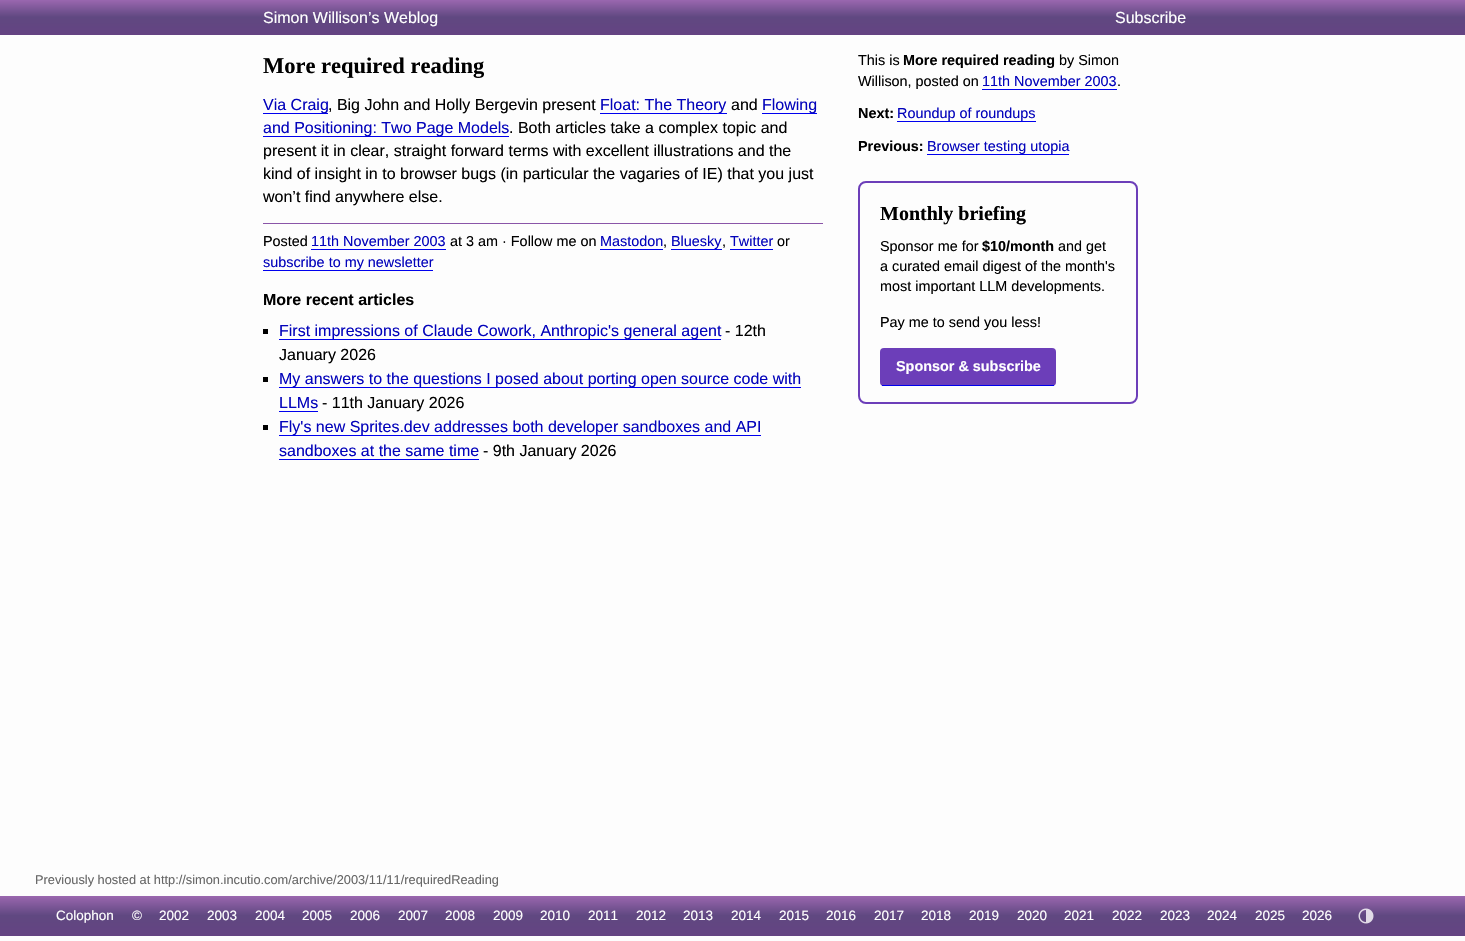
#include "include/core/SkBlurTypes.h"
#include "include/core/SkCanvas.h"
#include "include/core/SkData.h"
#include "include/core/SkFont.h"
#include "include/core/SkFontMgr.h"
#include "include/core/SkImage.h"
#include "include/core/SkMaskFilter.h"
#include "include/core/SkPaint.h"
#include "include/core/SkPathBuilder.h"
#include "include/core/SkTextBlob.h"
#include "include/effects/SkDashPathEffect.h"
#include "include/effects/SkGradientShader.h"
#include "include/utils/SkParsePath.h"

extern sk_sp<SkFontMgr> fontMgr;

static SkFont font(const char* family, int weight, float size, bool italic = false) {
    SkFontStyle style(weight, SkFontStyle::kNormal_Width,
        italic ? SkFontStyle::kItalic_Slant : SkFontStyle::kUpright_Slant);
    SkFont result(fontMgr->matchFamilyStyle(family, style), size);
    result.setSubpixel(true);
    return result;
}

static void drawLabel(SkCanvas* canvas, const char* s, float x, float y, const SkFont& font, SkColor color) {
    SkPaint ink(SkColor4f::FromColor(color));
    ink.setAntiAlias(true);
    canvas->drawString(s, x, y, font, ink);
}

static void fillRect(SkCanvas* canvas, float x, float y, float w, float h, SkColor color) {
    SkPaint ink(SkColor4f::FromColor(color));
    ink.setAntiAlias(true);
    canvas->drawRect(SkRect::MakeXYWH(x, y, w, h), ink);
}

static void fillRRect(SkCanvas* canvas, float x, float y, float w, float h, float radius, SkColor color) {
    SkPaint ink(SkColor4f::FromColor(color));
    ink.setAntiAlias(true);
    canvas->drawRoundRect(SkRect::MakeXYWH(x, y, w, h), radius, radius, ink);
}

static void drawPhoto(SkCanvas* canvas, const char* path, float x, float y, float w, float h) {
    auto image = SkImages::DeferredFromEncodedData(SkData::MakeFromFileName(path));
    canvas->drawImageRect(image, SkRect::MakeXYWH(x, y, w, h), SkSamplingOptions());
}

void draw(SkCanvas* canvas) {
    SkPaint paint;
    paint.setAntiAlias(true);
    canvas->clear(0xFFFDFDFD);
    {
        const SkColor colors[] = {0xFF9A67AF, 0xFF604881, 0xFF644382};
        const float stops[] = {0, 0.49f, 1};
        const SkPoint ends[] = {{733, 0}, {733, 35}};
        paint.setShader(SkGradientShader::MakeLinear(ends, colors, stops, 3, SkTileMode::kClamp));
        paint.setAlpha(255);
    }
    canvas->drawRect(SkRect::MakeXYWH(0, 0, 1465, 35), paint);
    SkFont font1 = font("Liberation Sans", 400, 16);
    drawLabel(canvas, "Simon Willison’s Weblog", 263, 23, font1, 0xFFFFFFFF);
    drawLabel(canvas, "Subscribe", 1115, 23, font1, 0xFFFFFFFF);
    SkFont font2 = font("Liberation Serif", 700, 22.5f);
    drawLabel(canvas, "More required reading", 263, 73, font2, 0xFF000000);
    fillRect(canvas, 263, 113, 65, 1, 0xFF0000EE);
    drawLabel(canvas, "Via Craig", 263, 110, font1, 0xFF0303BB);
    drawLabel(canvas, ", Big John and Holly Bergevin present", 328, 110, font1, 0xFF000000);
    fillRect(canvas, 600, 113, 127, 1, 0xFF0000EE);
    drawLabel(canvas, "Float: The Theory", 600, 110, font1, 0xFF0303BB);
    drawLabel(canvas, "and", 731, 110, font1, 0xFF000000);
    fillRect(canvas, 762, 113, 55, 1, 0xFF0000EE);
    drawLabel(canvas, "Flowing", 762, 110, font1, 0xFF0303BB);
    fillRect(canvas, 263, 136, 246, 1, 0xFF0000EE);
    drawLabel(canvas, "and Positioning: Two Page Models", 263, 133, font1, 0xFF0303BB);
    drawLabel(canvas, ". Both articles take a complex topic and", 509, 133, font1, 0xFF000000);
    drawLabel(canvas, "present it in clear, straight forward terms with excellent illustrations and the", 263, 156, font1, 0xFF000000);
    drawLabel(canvas, "kind of insight in to browser bugs (in particular the vagaries of IE) that you just", 263, 179, font1, 0xFF000000);
    drawLabel(canvas, "won’t find anywhere else.", 263, 202, font1, 0xFF000000);
    fillRect(canvas, 263, 223, 560, 1, 0xFF8A55A8);
    SkFont font3 = font("Liberation Sans", 400, 14.4f);
    drawLabel(canvas, "Posted", 263, 246, font3, 0xFF000000);
    drawLabel(canvas, "11th November 2003", 311, 246, font3, 0xFF0303BB);
    fillRect(canvas, 311, 249, 135, 1, 0xFF0000EE);
    drawLabel(canvas, "at 3 am · Follow me on", 450, 246, font3, 0xFF000000);
    drawLabel(canvas, "Mastodon", 600, 246, font3, 0xFF0303BB);
    fillRect(canvas, 600, 249, 63, 1, 0xFF0000EE);
    drawLabel(canvas, ",", 663, 246, font3, 0xFF000000);
    drawLabel(canvas, "Bluesky", 671, 246, font3, 0xFF0303BB);
    fillRect(canvas, 671, 249, 51, 1, 0xFF0000EE);
    drawLabel(canvas, ",", 722, 246, font3, 0xFF000000);
    drawLabel(canvas, "Twitter", 730, 246, font3, 0xFF0303BB);
    fillRect(canvas, 730, 249, 43, 1, 0xFF0000EE);
    drawLabel(canvas, "or", 777, 246, font3, 0xFF000000);
    drawLabel(canvas, "subscribe to my newsletter", 263, 267, font3, 0xFF0303BB);
    fillRect(canvas, 263, 270, 170, 1, 0xFF0000EE);
    SkFont font4 = font("Liberation Sans", 700, 16);
    drawLabel(canvas, "More recent articles", 263, 305, font4, 0xFF000000);
    fillRect(canvas, 263, 329, 5, 5, 0xFF000000);
    fillRect(canvas, 279, 339, 442, 1, 0xFF0000EE);
    drawLabel(canvas, "First impressions of Claude Cowork, Anthropic's general agent", 279, 336, font1, 0xFF0303BB);
    drawLabel(canvas, "- 12th", 725, 336, font1, 0xFF000000);
    drawLabel(canvas, "January 2026", 279, 360, font1, 0xFF000000);
    fillRect(canvas, 263, 377, 5, 5, 0xFF000000);
    fillRect(canvas, 279, 387, 522, 1, 0xFF0000EE);
    drawLabel(canvas, "My answers to the questions I posed about porting open source code with", 279, 384, font1, 0xFF0303BB);
    drawLabel(canvas, "LLMs", 279, 408, font1, 0xFF0303BB);
    fillRect(canvas, 279, 411, 39, 1, 0xFF0000EE);
    drawLabel(canvas, "- 11th January 2026", 322, 408, font1, 0xFF000000);
    fillRect(canvas, 263, 425, 5, 5, 0xFF000000);
    fillRect(canvas, 279, 435, 482, 1, 0xFF0000EE);
    drawLabel(canvas, "Fly's new Sprites.dev addresses both developer sandboxes and API", 279, 432, font1, 0xFF0303BB);
    drawLabel(canvas, "sandboxes at the same time", 279, 456, font1, 0xFF0303BB);
    fillRect(canvas, 279, 459, 200, 1, 0xFF0000EE);
    drawLabel(canvas, "- 9th January 2026", 483, 456, font1, 0xFF000000);
    drawLabel(canvas, "This is", 858, 65, font3, 0xFF000000);
    SkFont font5 = font("Liberation Sans", 700, 14.4f);
    drawLabel(canvas, "More required reading", 903, 65, font5, 0xFF000000);
    drawLabel(canvas, "by Simon", 1059, 65, font3, 0xFF000000);
    drawLabel(canvas, "Willison, posted on", 858, 86, font3, 0xFF000000);
    drawLabel(canvas, "11th November 2003", 982, 86, font3, 0xFF0303BB);
    fillRect(canvas, 982, 89, 135, 1, 0xFF0000EE);
    drawLabel(canvas, ".", 1117, 86, font3, 0xFF000000);
    drawLabel(canvas, "Next:", 858, 118, font5, 0xFF000000);
    drawLabel(canvas, "Roundup of roundups", 897, 118, font3, 0xFF0303BB);
    fillRect(canvas, 897, 121, 139, 1, 0xFF0000EE);
    drawLabel(canvas, "Previous:", 858, 151, font5, 0xFF000000);
    drawLabel(canvas, "Browser testing utopia", 927, 151, font3, 0xFF0303BB);
    fillRect(canvas, 927, 154, 142, 1, 0xFF0000EE);
    paint.setStroke(true);
    paint.setStrokeWidth(2);
    paint.setShader(nullptr);
    paint.setColor(0xFF6C3EB9);
    canvas->drawRoundRect(SkRect::MakeXYWH(859, 182, 278, 221), 7, 7, paint);
    SkFont font6 = font("Liberation Serif", 700, 20);
    drawLabel(canvas, "Monthly briefing", 880, 220, font6, 0xFF000000);
    drawLabel(canvas, "Sponsor me for", 880, 251, font3, 0xFF000000);
    drawLabel(canvas, "$10/month", 982, 251, font5, 0xFF000000);
    drawLabel(canvas, "and get", 1058, 251, font3, 0xFF000000);
    drawLabel(canvas, "a curated email digest of the month's", 880, 271, font3, 0xFF000000);
    drawLabel(canvas, "most important LLM developments.", 880, 291, font3, 0xFF000000);
    drawLabel(canvas, "Pay me to send you less!", 880, 327, font3, 0xFF000000);
    fillRRect(canvas, 880, 348, 176, 38, 4, 0xFF6C3EB9);
    fillRect(canvas, 882, 385, 172, 1, 0xFF0000EE);
    drawLabel(canvas, "Sponsor & subscribe", 896, 371, font5, 0xFFFFFFFF);
    SkFont font7 = font("Liberation Sans", 400, 12.8f);
    drawLabel(canvas, "Previously hosted at http://simon.incutio.com/archive/2003/11/11/requiredReading", 35, 884, font7, 0xFF666666);
    paint.setStroke(false);
    {
        const SkColor colors[] = {0xFF9A67AF, 0xFF604881, 0xFF644382};
        const float stops[] = {0, 0.49f, 1};
        const SkPoint ends[] = {{733, 896}, {733, 936}};
        paint.setShader(SkGradientShader::MakeLinear(ends, colors, stops, 3, SkTileMode::kClamp));
        paint.setAlpha(255);
    }
    canvas->drawRect(SkRect::MakeXYWH(0, 896, 1465, 40), paint);
    SkFont font8 = font("Liberation Sans", 400, 13.5f);
    drawLabel(canvas, "Colophon", 56, 920, font8, 0xFFFFFFFF);
    drawLabel(canvas, "©", 132, 920, font8, 0xFFFFFFFF);
    drawLabel(canvas, "2002", 159, 920, font8, 0xFFFFFFFF);
    drawLabel(canvas, "2003", 207, 920, font8, 0xFFFFFFFF);
    drawLabel(canvas, "2004", 255, 920, font8, 0xFFFFFFFF);
    drawLabel(canvas, "2005", 302, 920, font8, 0xFFFFFFFF);
    drawLabel(canvas, "2006", 350, 920, font8, 0xFFFFFFFF);
    drawLabel(canvas, "2007", 398, 920, font8, 0xFFFFFFFF);
    drawLabel(canvas, "2008", 445, 920, font8, 0xFFFFFFFF);
    drawLabel(canvas, "2009", 493, 920, font8, 0xFFFFFFFF);
    drawLabel(canvas, "2010", 540, 920, font8, 0xFFFFFFFF);
    drawLabel(canvas, "2011", 588, 920, font8, 0xFFFFFFFF);
    drawLabel(canvas, "2012", 636, 920, font8, 0xFFFFFFFF);
    drawLabel(canvas, "2013", 683, 920, font8, 0xFFFFFFFF);
    drawLabel(canvas, "2014", 731, 920, font8, 0xFFFFFFFF);
    drawLabel(canvas, "2015", 779, 920, font8, 0xFFFFFFFF);
    drawLabel(canvas, "2016", 826, 920, font8, 0xFFFFFFFF);
    drawLabel(canvas, "2017", 874, 920, font8, 0xFFFFFFFF);
    drawLabel(canvas, "2018", 921, 920, font8, 0xFFFFFFFF);
    drawLabel(canvas, "2019", 969, 920, font8, 0xFFFFFFFF);
    drawLabel(canvas, "2020", 1017, 920, font8, 0xFFFFFFFF);
    drawLabel(canvas, "2021", 1064, 920, font8, 0xFFFFFFFF);
    drawLabel(canvas, "2022", 1112, 920, font8, 0xFFFFFFFF);
    drawLabel(canvas, "2023", 1160, 920, font8, 0xFFFFFFFF);
    drawLabel(canvas, "2024", 1207, 920, font8, 0xFFFFFFFF);
    drawLabel(canvas, "2025", 1255, 920, font8, 0xFFFFFFFF);
    drawLabel(canvas, "2026", 1302, 920, font8, 0xFFFFFFFF);
    drawPhoto(canvas, "assets/img1.png", 1358, 908, 16, 16);
}
